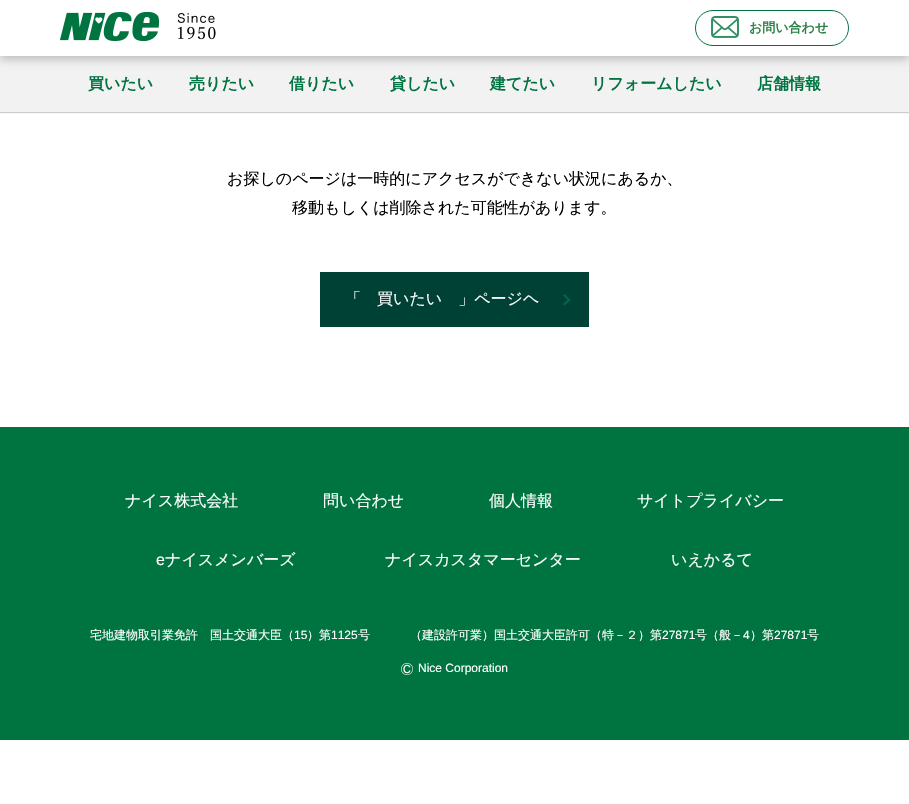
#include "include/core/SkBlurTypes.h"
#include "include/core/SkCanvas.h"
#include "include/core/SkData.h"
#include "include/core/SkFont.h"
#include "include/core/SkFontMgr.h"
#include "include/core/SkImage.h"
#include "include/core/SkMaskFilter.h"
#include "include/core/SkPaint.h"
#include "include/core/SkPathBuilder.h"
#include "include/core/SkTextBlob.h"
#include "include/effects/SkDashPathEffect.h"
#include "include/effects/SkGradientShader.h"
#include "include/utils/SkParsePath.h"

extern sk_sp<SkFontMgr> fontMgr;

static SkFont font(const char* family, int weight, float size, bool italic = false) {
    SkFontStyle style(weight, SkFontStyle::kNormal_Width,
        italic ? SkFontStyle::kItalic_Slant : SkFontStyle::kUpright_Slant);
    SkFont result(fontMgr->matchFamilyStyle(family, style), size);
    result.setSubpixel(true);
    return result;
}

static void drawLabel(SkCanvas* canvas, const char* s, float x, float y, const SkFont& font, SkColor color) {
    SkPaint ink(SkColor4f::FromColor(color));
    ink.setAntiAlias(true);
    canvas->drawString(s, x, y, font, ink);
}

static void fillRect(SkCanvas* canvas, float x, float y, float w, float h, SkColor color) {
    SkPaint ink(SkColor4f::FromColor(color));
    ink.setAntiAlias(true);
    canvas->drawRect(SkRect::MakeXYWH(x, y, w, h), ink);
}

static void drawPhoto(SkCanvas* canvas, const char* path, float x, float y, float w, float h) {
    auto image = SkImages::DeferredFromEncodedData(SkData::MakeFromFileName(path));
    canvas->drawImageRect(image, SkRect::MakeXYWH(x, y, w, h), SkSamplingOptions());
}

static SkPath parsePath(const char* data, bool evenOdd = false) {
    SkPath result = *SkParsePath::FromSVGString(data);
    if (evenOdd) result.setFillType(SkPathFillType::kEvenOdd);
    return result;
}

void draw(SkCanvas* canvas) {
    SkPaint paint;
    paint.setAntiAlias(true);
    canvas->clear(0xFFFFFFFF);
    paint.setColor(0x33000005);
    paint.setMaskFilter(SkMaskFilter::MakeBlur(kNormal_SkBlurStyle, 0.5f));
    canvas->drawRect(SkRect::MakeXYWH(0, 57, 909, 56), paint);
    paint.setMaskFilter(nullptr);
    fillRect(canvas, 0, 56, 909, 56, 0xFFF2F2F2);
    paint.setMaskFilter(SkMaskFilter::MakeBlur(kNormal_SkBlurStyle, 4));
    canvas->drawRect(SkRect::MakeXYWH(0, 4, 909, 56), paint);
    paint.setMaskFilter(nullptr);
    fillRect(canvas, 0, 0, 909, 56, 0xFFFFFFFF);
    drawPhoto(canvas, "assets/img1.png", 60, 12, 156, 29);
    paint.setStroke(true);
    paint.setStrokeWidth(1);
    paint.setColor(0xFF007440);
    canvas->drawRoundRect(SkRect::MakeXYWH(695.5f, 10.5f, 153, 35), 17.5f, 17.5f, paint);
    drawPhoto(canvas, "assets/img2.png", 711, 16, 28, 22);
    SkFont font1 = font("WenQuanYi Zen Hei", 700, 13);
    drawLabel(canvas, "お問い合わせ", 749, 32, font1, 0xFF2A8149);
    SkFont font2 = font("WenQuanYi Zen Hei", 700, 16);
    drawLabel(canvas, "買いたい", 88, 89, font2, 0xFF007440);
    drawLabel(canvas, "売りたい", 189, 89, font2, 0xFF007440);
    drawLabel(canvas, "借りたい", 289, 89, font2, 0xFF007440);
    drawLabel(canvas, "貸したい", 390, 89, font2, 0xFF007440);
    drawLabel(canvas, "建てたい", 490, 89, font2, 0xFF007440);
    drawLabel(canvas, "リフォームしたい", 591, 89, font2, 0xFF007440);
    drawLabel(canvas, "店舗情報", 757, 89, font2, 0xFF007440);
    SkFont font3 = font("WenQuanYi Zen Hei", 500, 16);
    drawLabel(canvas, "お探しのページは一時的にアクセスができない状況にあるか、", 227, 184, font3, 0xFF000000);
    drawLabel(canvas, "移動もしくは削除された可能性があります。", 292, 213, font3, 0xFF000000);
    fillRect(canvas, 320, 272, 269, 55, 0xFF004136);
    drawLabel(canvas, "「　買いたい　」ページヘ", 345, 304, font3, 0xFFFFFFFF);
    paint.setStroke(false);
    paint.setColor(0xFF006554);
    canvas->drawPath(parsePath("M564.5 294L570.5 300L569 301L563 295.5Z"), paint);
    canvas->drawPath(parsePath("M569 298.5L570.5 300L564.5 305.5L563 304Z"), paint);
    fillRect(canvas, 0, 427, 909, 313, 0xFF007440);
    drawLabel(canvas, "ナイス株式会社", 125, 506, font3, 0xFFFFFFFF);
    drawLabel(canvas, "問い合わせ", 323, 506, font3, 0xFFFFFFFF);
    drawLabel(canvas, "個人情報", 489, 506, font3, 0xFFFFFFFF);
    drawLabel(canvas, "サイトプライバシー", 637, 506, font3, 0xFFFFFFFF);
    SkFont font4 = font("Liberation Sans", 400, 16);
    drawLabel(canvas, "e", 156, 565, font4, 0xFFFFFFFF);
    drawLabel(canvas, "ナイスメンバーズ", 165, 565, font3, 0xFFFFFFFF);
    drawLabel(canvas, "ナイスカスタマーセンター", 385, 565, font3, 0xFFFFFFFF);
    drawLabel(canvas, "いえかるて", 671, 565, font3, 0xFFFFFFFF);
    SkFont font5 = font("WenQuanYi Zen Hei", 500, 12);
    drawLabel(canvas, "宅地建物取引業免許　国土交通大臣（", 90, 639, font5, 0xFFFFFFFF);
    SkFont font6 = font("Liberation Sans", 400, 12);
    drawLabel(canvas, "15", 294, 639, font6, 0xFFFFFFFF);
    drawLabel(canvas, "）第", 307, 639, font5, 0xFFFFFFFF);
    drawLabel(canvas, "1125", 331, 639, font6, 0xFFFFFFFF);
    drawLabel(canvas, "号", 358, 639, font5, 0xFFFFFFFF);
    drawLabel(canvas, "（建設許可業）国土交通大臣許可（特－２）第", 410, 639, font5, 0xFFFFFFFF);
    drawLabel(canvas, "27871", 662, 639, font6, 0xFFFFFFFF);
    drawLabel(canvas, "号（般－", 695, 639, font5, 0xFFFFFFFF);
    drawLabel(canvas, "4", 743, 639, font6, 0xFFFFFFFF);
    drawLabel(canvas, "）第", 750, 639, font5, 0xFFFFFFFF);
    drawLabel(canvas, "27871", 774, 639, font6, 0xFFFFFFFF);
    drawLabel(canvas, "号", 807, 639, font5, 0xFFFFFFFF);
    drawPhoto(canvas, "assets/img3.png", 401, 663, 12, 12);
    drawLabel(canvas, "Nice Corporation", 418, 672, font6, 0xFFFFFFFF);
}
